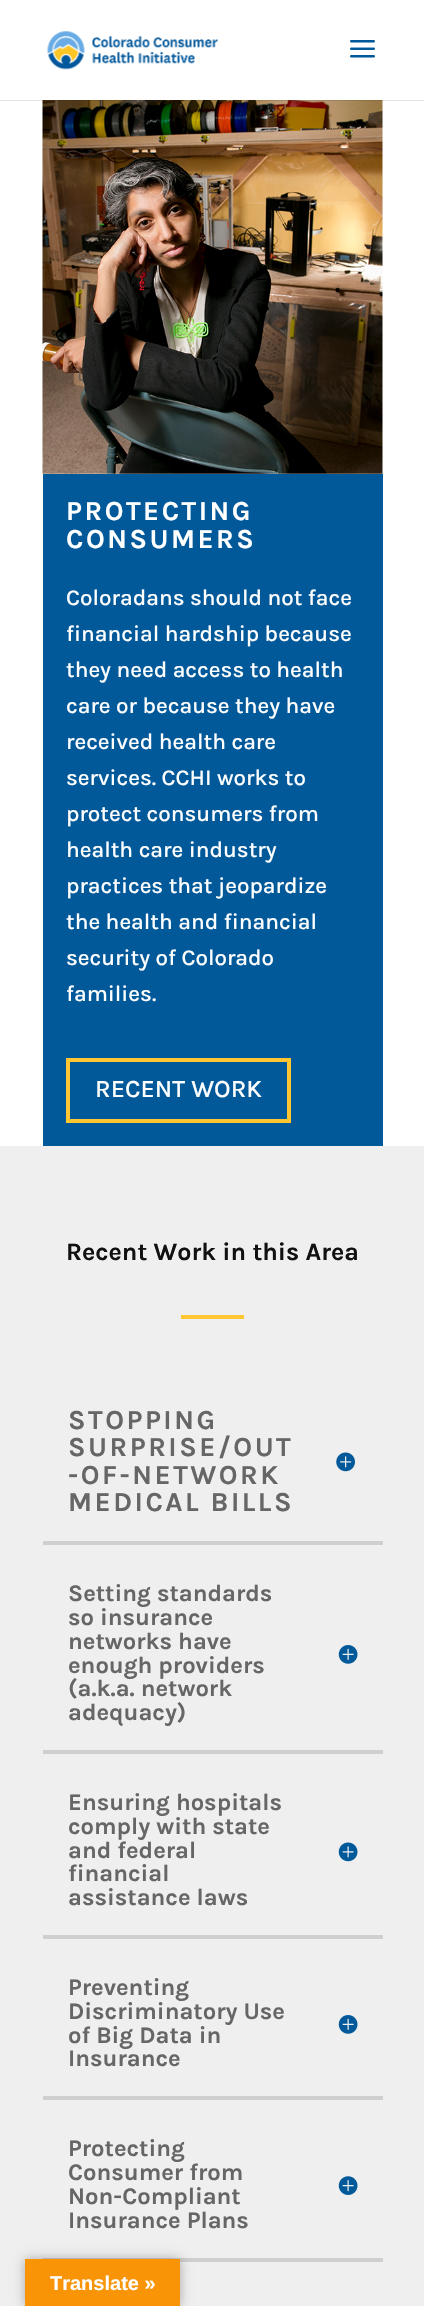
#include "include/core/SkBlurTypes.h"
#include "include/core/SkCanvas.h"
#include "include/core/SkData.h"
#include "include/core/SkFont.h"
#include "include/core/SkFontMgr.h"
#include "include/core/SkImage.h"
#include "include/core/SkMaskFilter.h"
#include "include/core/SkPaint.h"
#include "include/core/SkPathBuilder.h"
#include "include/core/SkTextBlob.h"
#include "include/effects/SkDashPathEffect.h"
#include "include/effects/SkGradientShader.h"
#include "include/utils/SkParsePath.h"

extern sk_sp<SkFontMgr> fontMgr;

static SkFont font(const char* family, int weight, float size, bool italic = false) {
    SkFontStyle style(weight, SkFontStyle::kNormal_Width,
        italic ? SkFontStyle::kItalic_Slant : SkFontStyle::kUpright_Slant);
    SkFont result(fontMgr->matchFamilyStyle(family, style), size);
    result.setSubpixel(true);
    return result;
}

static void drawLabel(SkCanvas* canvas, const char* s, float x, float y, const SkFont& font, SkColor color) {
    SkPaint ink(SkColor4f::FromColor(color));
    ink.setAntiAlias(true);
    canvas->drawString(s, x, y, font, ink);
}

static void drawTracked(SkCanvas* canvas, const char* s, float x, float y, const SkFont& font, const SkPaint& ink, float letter, float word) {
    std::vector<SkGlyphID> glyphs(font.countText(s, strlen(s), SkTextEncoding::kUTF8));
    std::vector<float> xs(glyphs.size());
    font.textToGlyphs(s, strlen(s), SkTextEncoding::kUTF8, glyphs);
    font.getXPos(glyphs, xs, x);
    float extra = 0;
    for (size_t i = 0; i < glyphs.size(); i++) {
        xs[i] += extra;
        extra += letter + word * (glyphs[i] == font.unicharToGlyph(' '));
    }
    canvas->drawTextBlob(SkTextBlob::MakeFromPosHGlyphs(glyphs, xs, y, font), 0, 0, ink);
}

static void fillRect(SkCanvas* canvas, float x, float y, float w, float h, SkColor color) {
    SkPaint ink(SkColor4f::FromColor(color));
    ink.setAntiAlias(true);
    canvas->drawRect(SkRect::MakeXYWH(x, y, w, h), ink);
}

static void drawPhoto(SkCanvas* canvas, const char* path, float x, float y, float w, float h) {
    auto image = SkImages::DeferredFromEncodedData(SkData::MakeFromFileName(path));
    canvas->drawImageRect(image, SkRect::MakeXYWH(x, y, w, h), SkSamplingOptions());
}

void draw(SkCanvas* canvas) {
    SkPaint paint;
    paint.setAntiAlias(true);
    canvas->clear(0xFFFFFFFF);
    drawPhoto(canvas, "assets/img3.png", 42, 100, 341, 374);
    fillRect(canvas, 0, 100, 424, 1, 0x1A000000);
    drawPhoto(canvas, "assets/img1.png", 47, 31, 171, 39);
    drawPhoto(canvas, "assets/img2.png", 350, 40, 25, 18);
    fillRect(canvas, 43, 474, 340, 672, 0xFF01599A);
    SkFont font1 = font("Karla", 700, 27.5f);
    paint.setColor(0xFFFFFFFF);
    drawTracked(canvas, "PROTECTING", 66, 520, font1, paint, 2.5f, 0);
    drawTracked(canvas, "CONSUMERS", 66, 548, font1, paint, 2.5f, 0);
    SkFont font2 = font("Karla", 500, 22.5f);
    drawLabel(canvas, "Coloradans should not face", 66, 605, font2, 0xFFFFFFFF);
    drawLabel(canvas, "financial hardship because", 66, 641, font2, 0xFFFFFFFF);
    drawLabel(canvas, "they need access to health", 66, 677, font2, 0xFFFFFFFF);
    drawLabel(canvas, "care or because they have", 66, 713, font2, 0xFFFFFFFF);
    drawLabel(canvas, "received health care", 66, 749, font2, 0xFFFFFFFF);
    drawLabel(canvas, "services. CCHI works to", 66, 785, font2, 0xFFFFFFFF);
    drawLabel(canvas, "protect consumers from", 66, 821, font2, 0xFFFFFFFF);
    drawLabel(canvas, "health care industry", 66, 857, font2, 0xFFFFFFFF);
    drawLabel(canvas, "practices that jeopardize", 66, 893, font2, 0xFFFFFFFF);
    drawLabel(canvas, "the health and financial", 66, 929, font2, 0xFFFFFFFF);
    drawLabel(canvas, "security of Colorado", 66, 965, font2, 0xFFFFFFFF);
    drawLabel(canvas, "families.", 66, 1001, font2, 0xFFFFFFFF);
    paint.setStroke(true);
    paint.setStrokeWidth(4);
    paint.setColor(0xFFFFC632);
    canvas->drawRect(SkRect::MakeXYWH(68, 1060, 221, 61), paint);
    SkFont font3 = font("Karla", 500, 25);
    drawLabel(canvas, "RECENT WORK", 95, 1097, font3, 0xFFFFFFFF);
    fillRect(canvas, 0, 1146, 424, 1160, 0xFFEFEFEF);
    SkFont font4 = font("Karla", 700, 25);
    drawLabel(canvas, "Recent Work in this Area", 66, 1260, font4, 0xFF111111);
    fillRect(canvas, 181, 1315, 63, 4, 0xFFFFC632);
    fillRect(canvas, 43, 1541, 340, 4, 0xFFD0CFCD);
    paint.setStroke(false);
    paint.setColor(0xFF666666);
    drawTracked(canvas, "STOPPING", 68, 1429, font1, paint, 2.5f, 0);
    drawTracked(canvas, "SURPRISE/OUT", 68, 1456, font1, paint, 2.5f, 0);
    drawPhoto(canvas, "assets/img4.png", 336, 1452, 19, 20);
    drawTracked(canvas, "-OF-NETWORK", 68, 1484, font1, paint, 2.5f, 0);
    drawTracked(canvas, "MEDICAL BILLS", 68, 1511, font1, paint, 2.5f, 0);
    fillRect(canvas, 43, 1750, 340, 4, 0xFFD0CFCD);
    SkFont font5 = font("Karla", 700, 23.75f);
    drawLabel(canvas, "Setting standards", 68, 1601, font5, 0xFF666666);
    drawLabel(canvas, "so insurance", 68, 1625, font5, 0xFF666666);
    drawLabel(canvas, "networks have", 68, 1649, font5, 0xFF666666);
    drawLabel(canvas, "enough providers", 68, 1673, font5, 0xFF666666);
    drawPhoto(canvas, "assets/img5.png", 338, 1645, 20, 19);
    drawLabel(canvas, "(a.k.a. network", 68, 1696, font5, 0xFF666666);
    drawLabel(canvas, "adequacy)", 68, 1720, font5, 0xFF666666);
    fillRect(canvas, 43, 1935, 340, 4, 0xFFD0CFCD);
    drawLabel(canvas, "Ensuring hospitals", 68, 1810, font5, 0xFF666666);
    drawLabel(canvas, "comply with state", 68, 1834, font5, 0xFF666666);
    drawLabel(canvas, "and federal", 68, 1858, font5, 0xFF666666);
    drawPhoto(canvas, "assets/img6.png", 338, 1842, 20, 20);
    drawLabel(canvas, "financial", 68, 1881, font5, 0xFF666666);
    drawLabel(canvas, "assistance laws", 68, 1905, font5, 0xFF666666);
    fillRect(canvas, 43, 2096, 340, 4, 0xFFD0CFCD);
    drawLabel(canvas, "Preventing", 68, 1995, font5, 0xFF666666);
    drawLabel(canvas, "Discriminatory Use", 68, 2019, font5, 0xFF666666);
    drawPhoto(canvas, "assets/img5.png", 338, 2015, 20, 19);
    drawLabel(canvas, "of Big Data in", 68, 2043, font5, 0xFF666666);
    drawLabel(canvas, "Insurance", 68, 2066, font5, 0xFF666666);
    fillRect(canvas, 43, 2258, 340, 4, 0xFFD0CFCD);
    drawLabel(canvas, "Protecting", 68, 2156, font5, 0xFF666666);
    drawLabel(canvas, "Consumer from", 68, 2180, font5, 0xFF666666);
    drawLabel(canvas, "Non-Compliant", 68, 2204, font5, 0xFF666666);
    drawPhoto(canvas, "assets/img7.png", 338, 2176, 20, 19);
    drawLabel(canvas, "Insurance Plans", 68, 2228, font5, 0xFF666666);
    paint.setColor(0x4D000000);
    paint.setMaskFilter(SkMaskFilter::MakeBlur(kNormal_SkBlurStyle, 5.5f));
    canvas->drawRect(SkRect::MakeXYWH(25, 2259, 155, 47), paint);
    paint.setMaskFilter(nullptr);
    fillRect(canvas, 25, 2259, 155, 47, 0xFFF89406);
    SkFont font6 = font("Liberation Sans", 700, 20);
    drawLabel(canvas, "Translate »", 50, 2290, font6, 0xFFFFFFFF);
}
